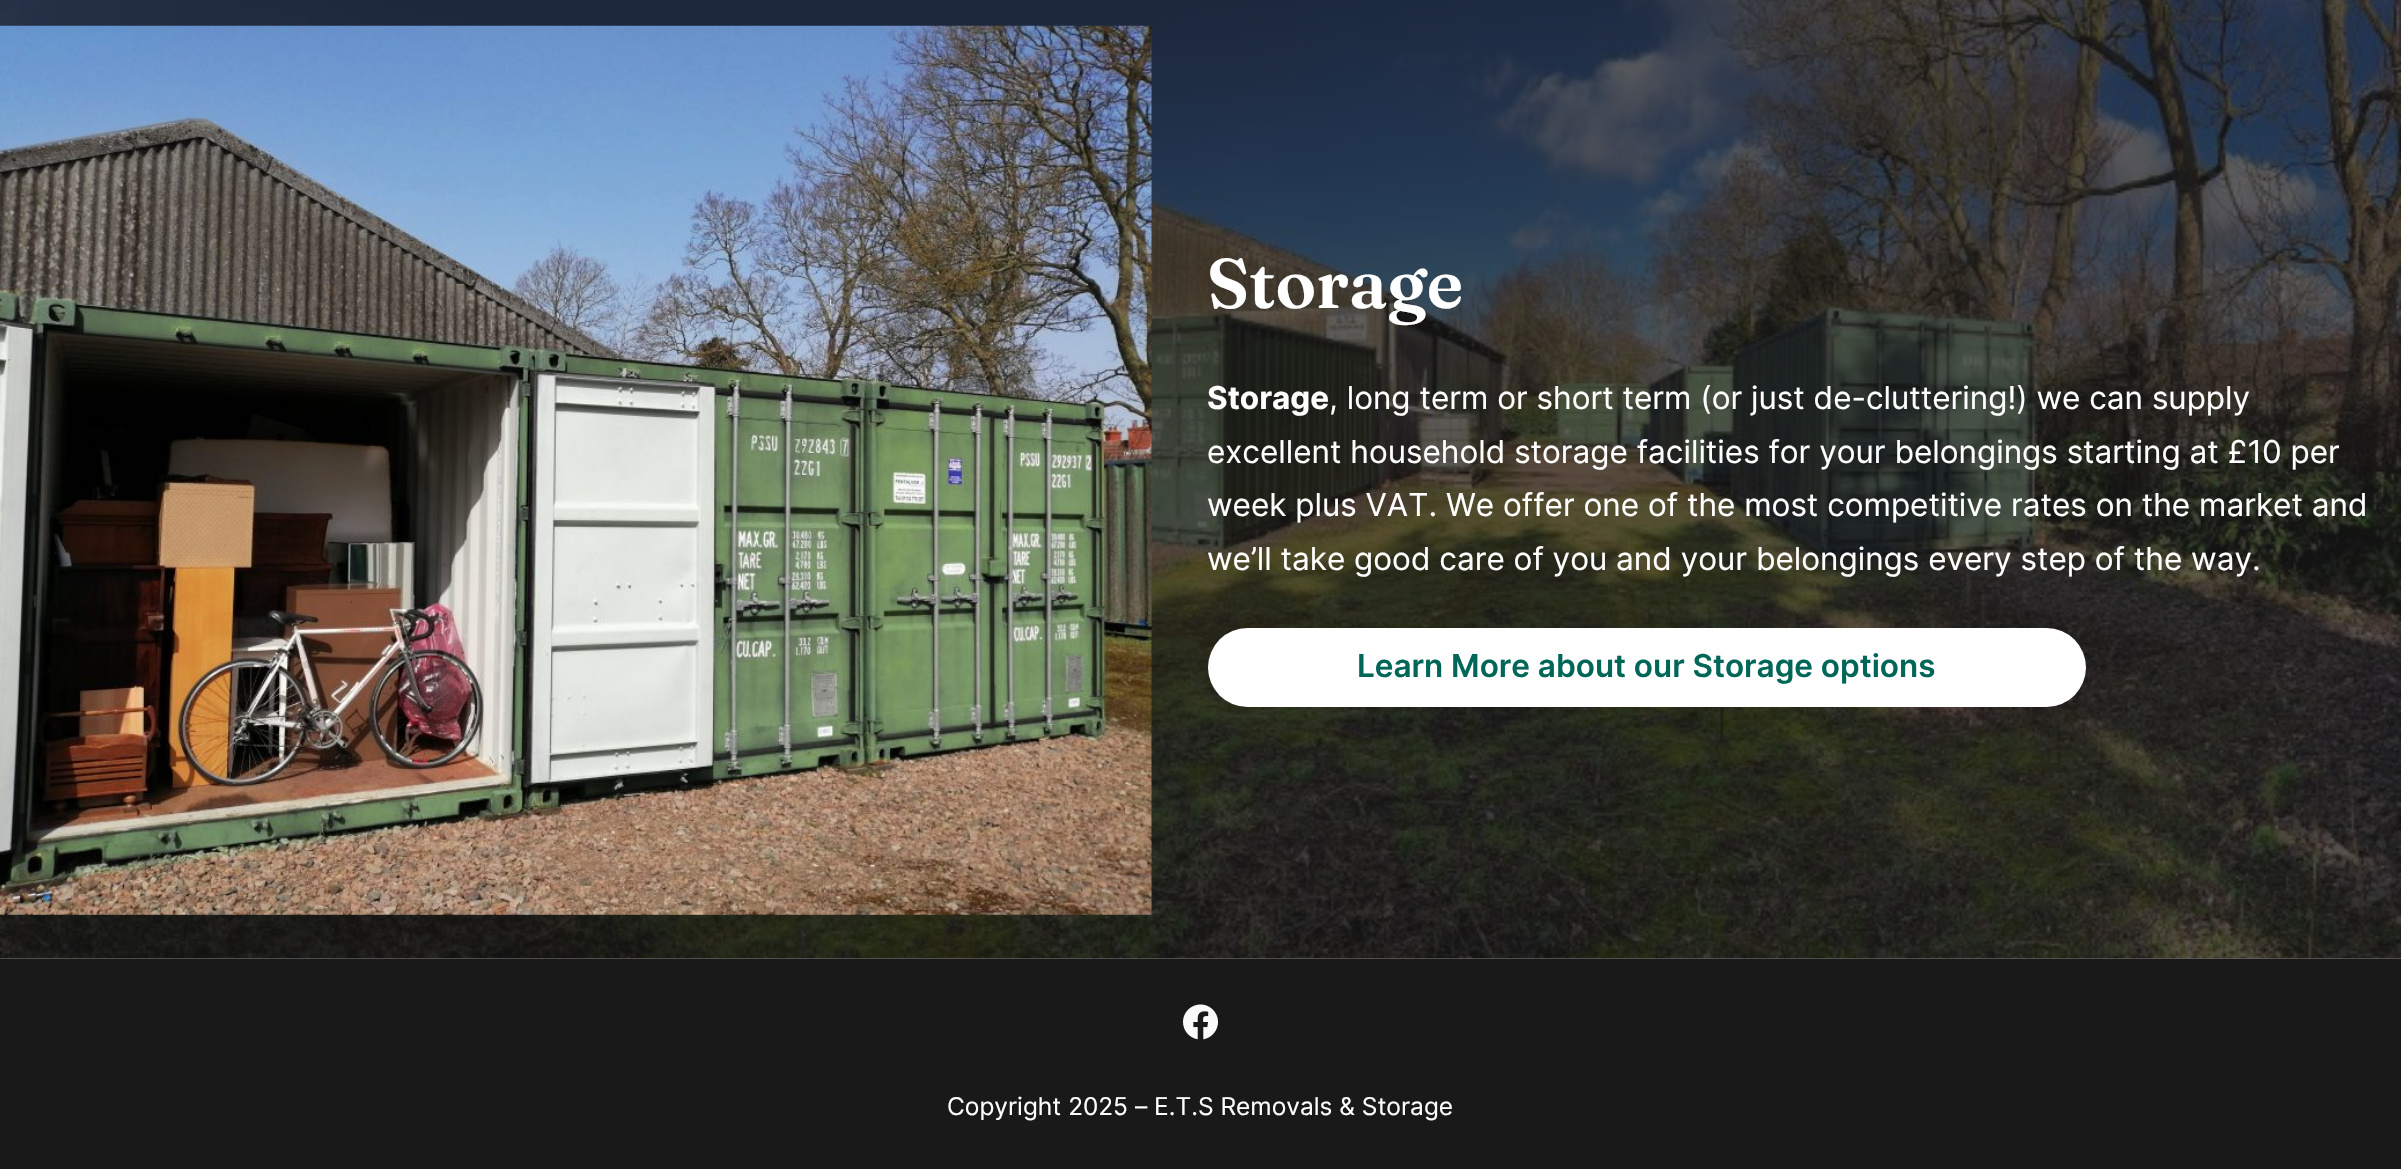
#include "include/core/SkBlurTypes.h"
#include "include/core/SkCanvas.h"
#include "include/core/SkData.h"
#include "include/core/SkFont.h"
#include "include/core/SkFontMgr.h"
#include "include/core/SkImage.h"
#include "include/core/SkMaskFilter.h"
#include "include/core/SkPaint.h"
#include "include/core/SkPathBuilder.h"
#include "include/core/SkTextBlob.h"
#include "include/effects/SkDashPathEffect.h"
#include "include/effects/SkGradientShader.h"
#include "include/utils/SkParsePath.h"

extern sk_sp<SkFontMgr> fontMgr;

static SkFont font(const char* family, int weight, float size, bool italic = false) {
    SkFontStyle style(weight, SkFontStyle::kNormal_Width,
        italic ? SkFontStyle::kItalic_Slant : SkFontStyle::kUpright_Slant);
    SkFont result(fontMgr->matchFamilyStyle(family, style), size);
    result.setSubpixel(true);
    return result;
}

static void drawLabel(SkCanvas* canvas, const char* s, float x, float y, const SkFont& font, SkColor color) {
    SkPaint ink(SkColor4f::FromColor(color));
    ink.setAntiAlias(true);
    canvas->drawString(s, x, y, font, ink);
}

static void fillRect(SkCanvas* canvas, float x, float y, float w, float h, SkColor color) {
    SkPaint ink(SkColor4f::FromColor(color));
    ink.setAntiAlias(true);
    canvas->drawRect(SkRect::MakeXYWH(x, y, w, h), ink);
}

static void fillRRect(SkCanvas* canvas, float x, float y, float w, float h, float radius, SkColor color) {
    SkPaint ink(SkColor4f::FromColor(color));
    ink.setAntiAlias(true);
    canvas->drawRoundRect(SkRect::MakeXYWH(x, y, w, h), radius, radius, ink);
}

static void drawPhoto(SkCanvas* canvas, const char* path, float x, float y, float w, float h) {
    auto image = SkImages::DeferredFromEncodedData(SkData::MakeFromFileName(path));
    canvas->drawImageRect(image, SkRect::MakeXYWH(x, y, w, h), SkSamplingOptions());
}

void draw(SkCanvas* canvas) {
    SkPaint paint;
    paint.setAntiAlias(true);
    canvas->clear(0xFF5F5E5E);
    drawPhoto(canvas, "assets/img1.png", 0, 0, 2401, 959);
    drawPhoto(canvas, "assets/img2.png", 0, 25, 1152, 890);
    SkFont font1 = font("Fraunces", 600, 70);
    drawLabel(canvas, "Storage", 1207, 308, font1, 0xFFFFFFFF);
    SkFont font2 = font("Inter", 700, 31.5f);
    drawLabel(canvas, "Storage", 1207, 409, font2, 0xFFFFFFFF);
    SkFont font3 = font("Inter", 400, 31.5f);
    drawLabel(canvas, ", long term or short term (or just de-cluttering!) we can supply", 1329, 409, font3, 0xFFFFFFFF);
    drawLabel(canvas, "excellent household storage facilities for your belongings starting at £10 per", 1207, 463, font3, 0xFFFFFFFF);
    drawLabel(canvas, "week plus VAT. We offer one of the most competitive rates on the market and", 1207, 516, font3, 0xFFFFFFFF);
    drawLabel(canvas, "we’ll take good care of you and your belongings every step of the way.", 1207, 570, font3, 0xFFFFFFFF);
    fillRRect(canvas, 1208, 628, 878, 79, 39.5f, 0xFFFFFFFF);
    SkFont font4 = font("Inter", 600, 31.5f);
    drawLabel(canvas, "Learn More about our Storage options", 1357, 677, font4, 0xFF006658);
    fillRect(canvas, 0, 959, 2401, 210, 0xFF1A1919);
    drawPhoto(canvas, "assets/img3.png", 1183, 1004, 35, 36);
    SkFont font5 = font("Inter", 400, 24.5f);
    drawLabel(canvas, "Copyright 2025 – E.T.S Removals & Storage", 947, 1115, font5, 0xFFFFFFFF);
}
